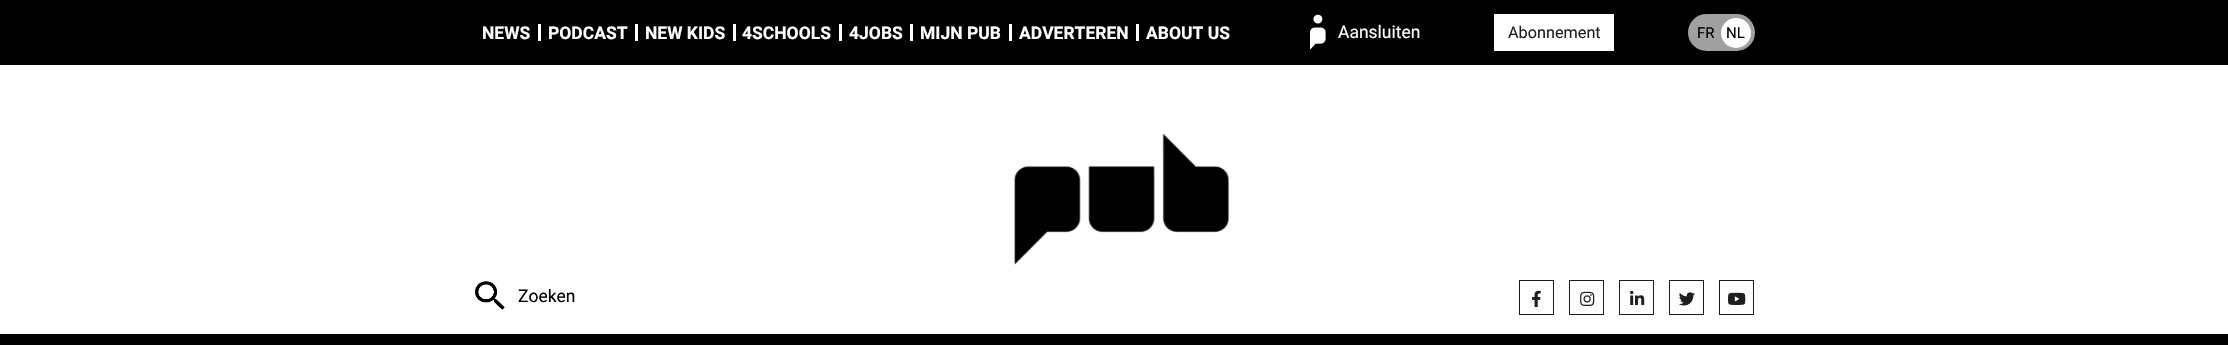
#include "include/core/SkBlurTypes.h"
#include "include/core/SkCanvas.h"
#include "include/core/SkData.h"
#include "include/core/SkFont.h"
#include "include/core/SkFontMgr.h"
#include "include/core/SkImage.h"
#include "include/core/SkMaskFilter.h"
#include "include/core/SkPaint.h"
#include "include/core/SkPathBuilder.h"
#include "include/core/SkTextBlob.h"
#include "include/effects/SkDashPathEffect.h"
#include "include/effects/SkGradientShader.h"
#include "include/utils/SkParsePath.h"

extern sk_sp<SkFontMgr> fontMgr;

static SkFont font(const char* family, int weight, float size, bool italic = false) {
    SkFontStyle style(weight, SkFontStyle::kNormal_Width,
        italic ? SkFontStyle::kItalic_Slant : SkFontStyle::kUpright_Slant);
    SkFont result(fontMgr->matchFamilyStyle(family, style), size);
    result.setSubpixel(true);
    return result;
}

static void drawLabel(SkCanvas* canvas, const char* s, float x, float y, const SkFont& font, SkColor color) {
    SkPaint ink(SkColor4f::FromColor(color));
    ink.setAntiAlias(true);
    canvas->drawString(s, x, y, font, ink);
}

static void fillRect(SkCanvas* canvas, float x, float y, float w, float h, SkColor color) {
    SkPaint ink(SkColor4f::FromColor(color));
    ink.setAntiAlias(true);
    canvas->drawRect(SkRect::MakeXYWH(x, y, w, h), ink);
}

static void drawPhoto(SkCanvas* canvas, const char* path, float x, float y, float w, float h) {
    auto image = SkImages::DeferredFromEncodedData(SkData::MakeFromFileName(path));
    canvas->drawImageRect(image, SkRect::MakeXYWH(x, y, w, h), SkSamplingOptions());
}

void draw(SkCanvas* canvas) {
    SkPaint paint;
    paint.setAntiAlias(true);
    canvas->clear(0xFFFFFFFF);
    fillRect(canvas, 0, 0, 2228, 65, 0xFF000000);
    SkFont font1 = font("Roboto", 700, 17.5f);
    drawLabel(canvas, "NEWS", 482, 39, font1, 0xFFFFFFFF);
    fillRect(canvas, 538, 24, 3, 17, 0xFFFFFFFF);
    drawLabel(canvas, "PODCAST", 548, 39, font1, 0xFFFFFFFF);
    fillRect(canvas, 635, 24, 3, 17, 0xFFFFFFFF);
    drawLabel(canvas, "NEW KIDS", 645, 39, font1, 0xFFFFFFFF);
    fillRect(canvas, 733, 24, 3, 17, 0xFFFFFFFF);
    drawLabel(canvas, "4SCHOOLS", 742, 39, font1, 0xFFFFFFFF);
    fillRect(canvas, 839, 24, 3, 17, 0xFFFFFFFF);
    drawLabel(canvas, "4JOBS", 849, 39, font1, 0xFFFFFFFF);
    fillRect(canvas, 910, 24, 3, 17, 0xFFFFFFFF);
    drawLabel(canvas, "MIJN PUB", 920, 39, font1, 0xFFFFFFFF);
    fillRect(canvas, 1009, 24, 3, 17, 0xFFFFFFFF);
    drawLabel(canvas, "ADVERTEREN", 1019, 39, font1, 0xFFFFFFFF);
    fillRect(canvas, 1136, 24, 3, 17, 0xFFFFFFFF);
    drawLabel(canvas, "ABOUT US", 1146, 39, font1, 0xFFFFFFFF);
    drawPhoto(canvas, "assets/img1.png", 1310, 14, 16, 36);
    SkFont font2 = font("Roboto", 400, 17.5f);
    drawLabel(canvas, "Aansluiten", 1338, 38, font2, 0xFFFFFFFF);
    paint.setStroke(true);
    paint.setStrokeWidth(1);
    paint.setColor(0xFFFFFFFF);
    canvas->drawRect(SkRect::MakeXYWH(1494.5f, 14.5f, 119, 36), paint);
    fillRect(canvas, 1495, 15, 118, 35, 0xFFFFFFFF);
    SkFont font3 = font("Roboto", 400, 16.25f);
    drawLabel(canvas, "Abonnement", 1508, 38, font3, 0xFF1E1E1B);
    paint.setStroke(false);
    paint.setColor(0xFFA0A0A0);
    canvas->drawRoundRect(SkRect::MakeXYWH(1690, 16, 63, 33), 16.5f, 16.5f, paint);
    paint.setStroke(true);
    paint.setStrokeWidth(4);
    canvas->drawRoundRect(SkRect::MakeXYWH(1690, 16, 63, 33), 16.5f, 16.5f, paint);
    SkFont font4 = font("Roboto", 400, 15);
    drawLabel(canvas, "FR", 1697, 38, font4, 0xFF000000);
    paint.setStroke(false);
    paint.setColor(0xFFFFFFFF);
    canvas->drawCircle(1736, 33, 15, paint);
    drawLabel(canvas, "NL", 1726, 38, font4, 0xFF000000);
    fillRect(canvas, 0, 334, 2228, 11, 0xFF000000);
    drawPhoto(canvas, "assets/img2.png", 1014, 133, 216, 132);
    drawPhoto(canvas, "assets/img3.png", 475, 281, 30, 29);
    drawLabel(canvas, "Zoeken", 518, 302, font2, 0xFF000000);
    paint.setStroke(true);
    paint.setStrokeWidth(1);
    paint.setColor(0xFF1E1E1B);
    canvas->drawRect(SkRect::MakeXYWH(1519.5f, 280.5f, 34, 34), paint);
    drawPhoto(canvas, "assets/img4.png", 1532, 290, 9, 17);
    canvas->drawRect(SkRect::MakeXYWH(1569.5f, 280.5f, 34, 34), paint);
    drawPhoto(canvas, "assets/img5.png", 1580, 291, 15, 15);
    canvas->drawRect(SkRect::MakeXYWH(1619.5f, 280.5f, 34, 34), paint);
    drawPhoto(canvas, "assets/img6.png", 1630, 290, 15, 15);
    canvas->drawRect(SkRect::MakeXYWH(1669.5f, 280.5f, 34, 34), paint);
    drawPhoto(canvas, "assets/img7.png", 1679, 292, 16, 14);
    canvas->drawRect(SkRect::MakeXYWH(1719.5f, 280.5f, 34, 34), paint);
    drawPhoto(canvas, "assets/img8.png", 1728, 292, 18, 13);
}
